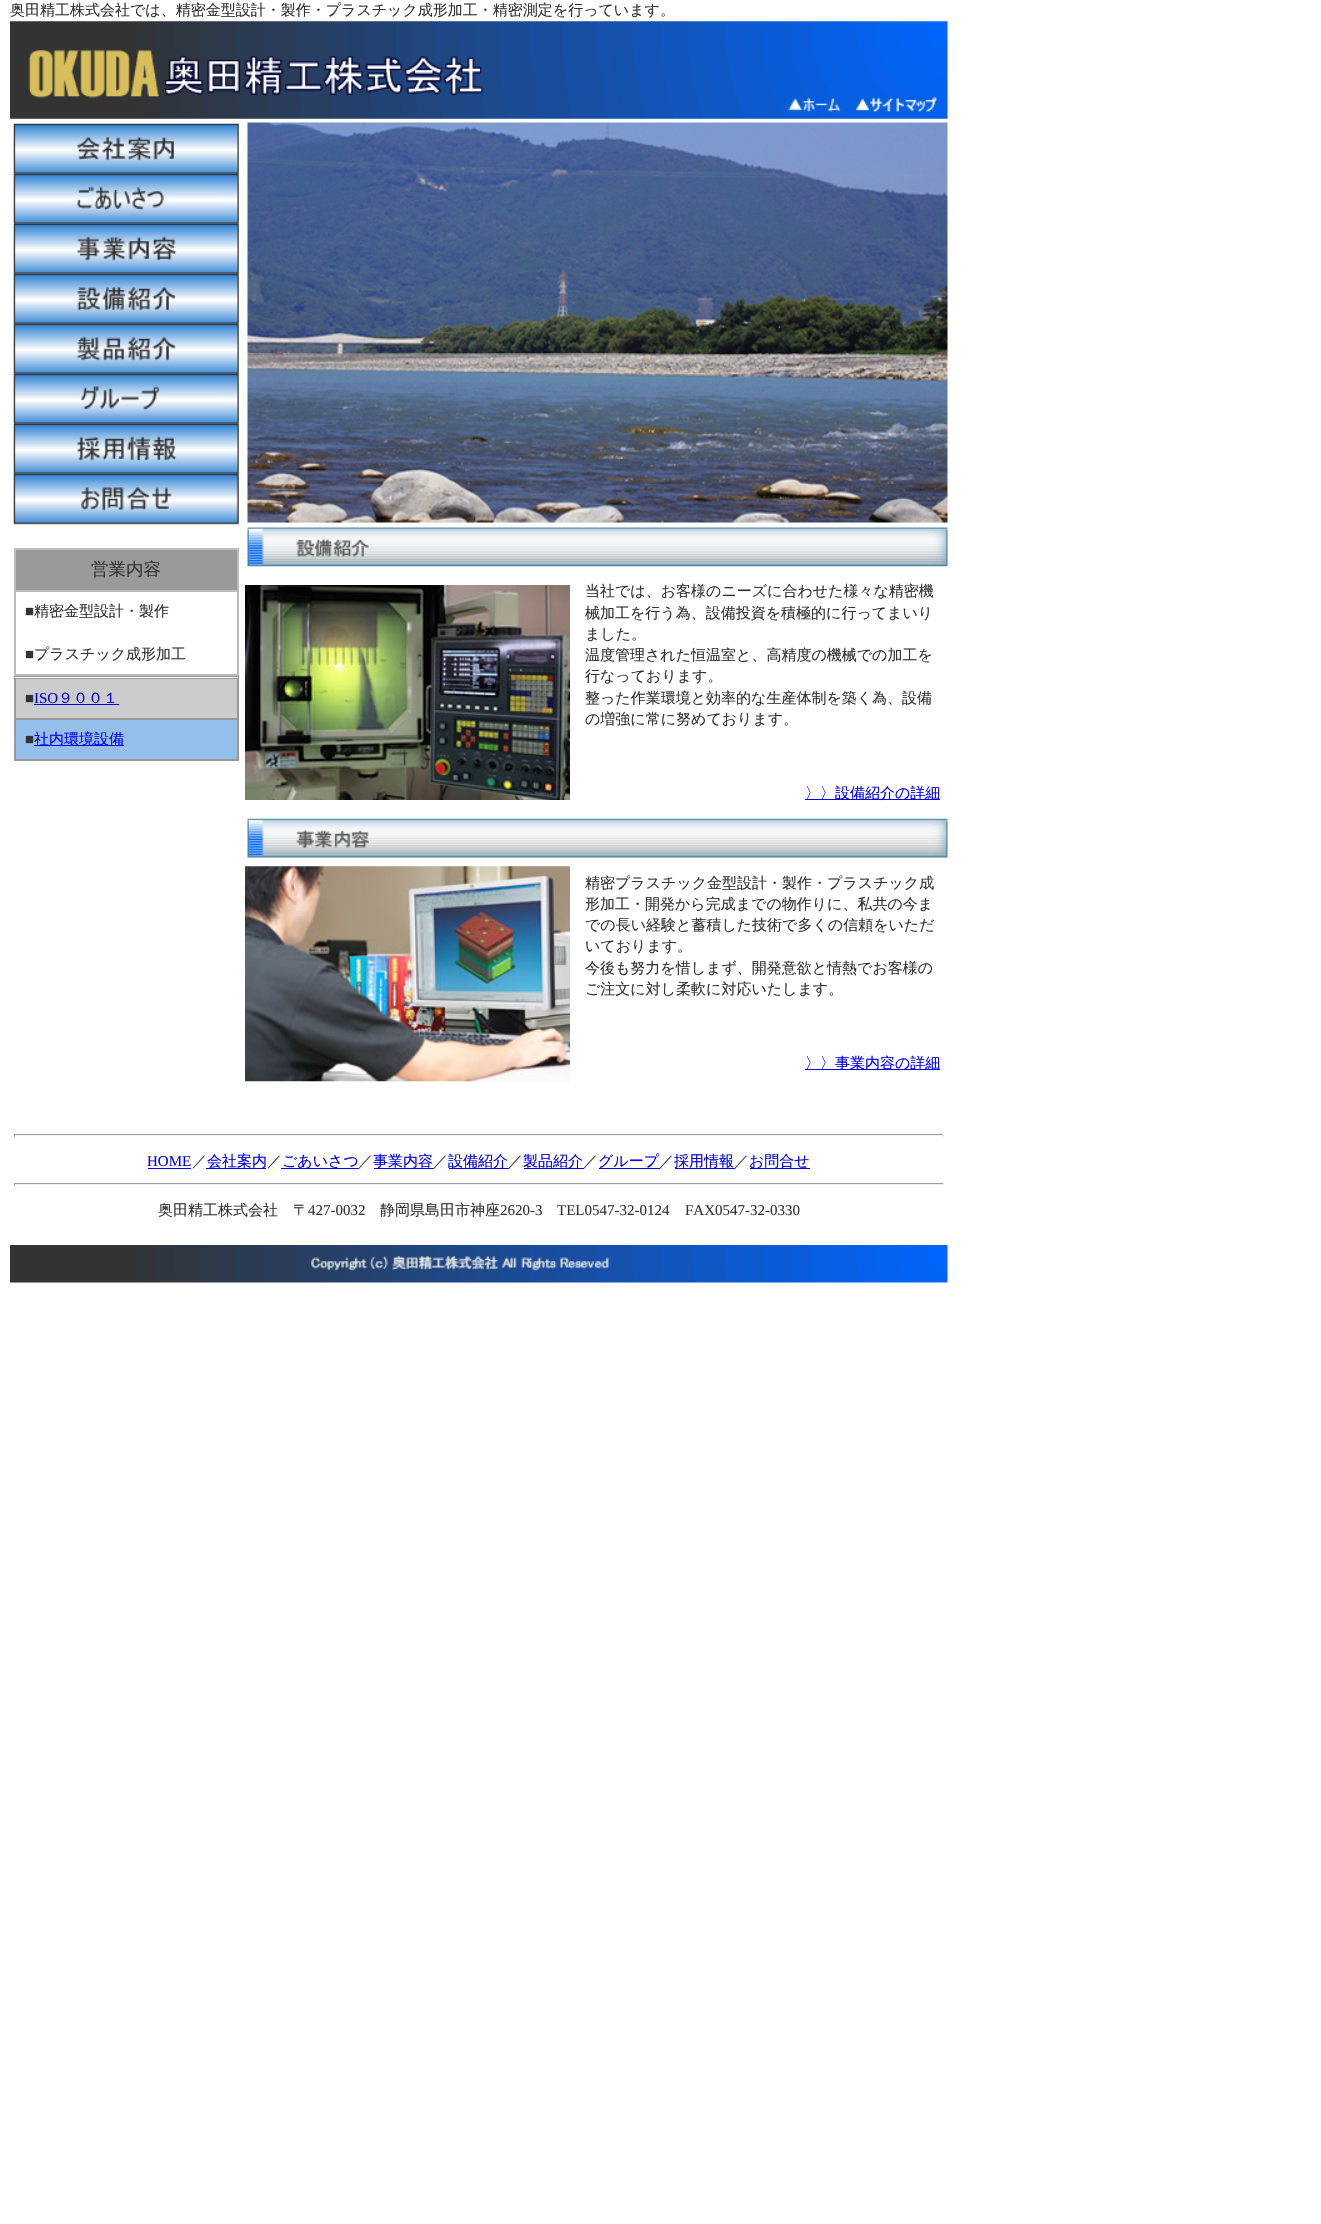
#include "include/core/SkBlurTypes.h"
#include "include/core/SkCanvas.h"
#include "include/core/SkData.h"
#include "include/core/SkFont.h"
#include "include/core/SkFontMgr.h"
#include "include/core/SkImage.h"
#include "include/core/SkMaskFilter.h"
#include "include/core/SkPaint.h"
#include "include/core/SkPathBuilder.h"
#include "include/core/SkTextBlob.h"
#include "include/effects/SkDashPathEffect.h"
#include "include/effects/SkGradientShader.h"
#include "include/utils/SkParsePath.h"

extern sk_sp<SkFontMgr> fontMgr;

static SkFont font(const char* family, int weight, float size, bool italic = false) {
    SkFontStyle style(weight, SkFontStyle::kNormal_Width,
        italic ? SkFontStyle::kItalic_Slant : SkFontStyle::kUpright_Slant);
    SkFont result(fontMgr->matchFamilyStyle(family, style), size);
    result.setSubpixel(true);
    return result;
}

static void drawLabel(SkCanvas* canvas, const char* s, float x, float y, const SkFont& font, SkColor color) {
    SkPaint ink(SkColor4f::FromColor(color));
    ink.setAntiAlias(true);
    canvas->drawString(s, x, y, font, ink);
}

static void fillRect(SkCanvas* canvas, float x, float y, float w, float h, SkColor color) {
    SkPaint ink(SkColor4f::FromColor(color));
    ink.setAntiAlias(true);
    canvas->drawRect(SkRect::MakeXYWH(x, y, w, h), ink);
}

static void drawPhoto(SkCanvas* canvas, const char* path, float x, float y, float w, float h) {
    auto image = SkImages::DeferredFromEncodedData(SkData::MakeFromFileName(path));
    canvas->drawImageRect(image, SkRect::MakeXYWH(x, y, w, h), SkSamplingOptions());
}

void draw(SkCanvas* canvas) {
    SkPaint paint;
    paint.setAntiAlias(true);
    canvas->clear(0xFFFFFFFF);
    SkFont font1 = font("WenQuanYi Zen Hei", 500, 15);
    drawLabel(canvas, "奥田精工株式会社では、精密金型設計・製作・プラスチック成形加工・精密測定を行っています。", 10, 15, font1, 0xFF333333);
    drawPhoto(canvas, "assets/img1.png", 10, 21, 938, 98);
    drawPhoto(canvas, "assets/img2.png", 247, 527, 701, 40);
    drawPhoto(canvas, "assets/img3.png", 247, 122, 701, 401);
    drawPhoto(canvas, "assets/img4.png", 13, 123, 226, 51);
    drawPhoto(canvas, "assets/img5.png", 13, 173, 226, 51);
    drawPhoto(canvas, "assets/img6.png", 13, 223, 226, 51);
    drawPhoto(canvas, "assets/img7.png", 13, 273, 226, 51);
    drawPhoto(canvas, "assets/img8.png", 13, 323, 226, 51);
    drawPhoto(canvas, "assets/img9.png", 13, 373, 226, 51);
    drawPhoto(canvas, "assets/img10.png", 13, 423, 226, 51);
    drawPhoto(canvas, "assets/img11.png", 13, 473, 226, 52);
    paint.setStroke(true);
    paint.setStrokeWidth(1);
    paint.setColor(0xFFBBBBBB);
    canvas->drawRect(SkRect::MakeXYWH(14.5f, 548.5f, 224, 127), paint);
    paint.setStroke(false);
    paint.setColor(0xFF9A9A9A);
    canvas->drawRect(SkRect::MakeXYWH(15.5f, 549.5f, 222, 41), paint);
    paint.setStroke(true);
    paint.setColor(0xFFBBBBBB);
    canvas->drawRect(SkRect::MakeXYWH(15.5f, 549.5f, 222, 41), paint);
    SkFont font2 = font("WenQuanYi Zen Hei", 500, 17.5f);
    drawLabel(canvas, "営業内容", 91, 575, font2, 0xFF333333);
    canvas->drawRect(SkRect::MakeXYWH(15.5f, 591.5f, 222, 83), paint);
    SkFont font3 = font("Liberation Serif", 400, 15);
    drawLabel(canvas, "■", 25, 616, font3, 0xFF333333);
    drawLabel(canvas, "精密金型設計・製作", 34, 616, font1, 0xFF333333);
    drawLabel(canvas, "■", 25, 659, font3, 0xFF333333);
    drawLabel(canvas, "プラスチック成形加工", 34, 659, font1, 0xFF333333);
    paint.setColor(0xFF999999);
    canvas->drawRect(SkRect::MakeXYWH(14.5f, 676.5f, 224, 84), paint);
    paint.setStroke(false);
    paint.setColor(0xFFCCCCCC);
    canvas->drawRect(SkRect::MakeXYWH(15.5f, 678.5f, 222, 40), paint);
    paint.setStroke(true);
    paint.setColor(0xFF999999);
    canvas->drawRect(SkRect::MakeXYWH(15.5f, 678.5f, 222, 40), paint);
    drawLabel(canvas, "■", 25, 703, font3, 0xFF333333);
    fillRect(canvas, 34, 704, 85, 1, 0xFF0000EE);
    drawLabel(canvas, "ISO", 34, 703, font3, 0xFF0000EE);
    drawLabel(canvas, "９００１", 58, 703, font1, 0xFF0000EE);
    paint.setStroke(false);
    paint.setColor(0xFF94BFEA);
    canvas->drawRect(SkRect::MakeXYWH(15.5f, 719.5f, 222, 40), paint);
    paint.setStroke(true);
    paint.setColor(0xFF999999);
    canvas->drawRect(SkRect::MakeXYWH(15.5f, 719.5f, 222, 40), paint);
    drawLabel(canvas, "■", 25, 744, font3, 0xFF333333);
    fillRect(canvas, 34, 745, 90, 1, 0xFF0000EE);
    drawLabel(canvas, "社内環境設備", 34, 744, font1, 0xFF0000EE);
    drawPhoto(canvas, "assets/img12.png", 245, 585, 325, 215);
    drawLabel(canvas, "当社では、お客様のニーズに合わせた様々な精密機", 585, 596, font1, 0xFF333333);
    drawLabel(canvas, "械加工を行う為、設備投資を積極的に行ってまいり", 585, 618, font1, 0xFF333333);
    drawLabel(canvas, "ました。", 585, 639, font1, 0xFF333333);
    drawLabel(canvas, "温度管理された恒温室と、高精度の機械での加工を", 585, 660, font1, 0xFF333333);
    drawLabel(canvas, "行なっております。", 585, 681, font1, 0xFF333333);
    drawLabel(canvas, "整った作業環境と効率的な生産体制を築く為、設備", 585, 703, font1, 0xFF333333);
    drawLabel(canvas, "の増強に常に努めております。", 585, 724, font1, 0xFF333333);
    fillRect(canvas, 805, 799, 135, 1, 0xFF0000EE);
    drawLabel(canvas, "〉〉設備紹介の詳細", 805, 798, font1, 0xFF0000EE);
    drawPhoto(canvas, "assets/img13.png", 247, 818, 701, 40);
    drawPhoto(canvas, "assets/img14.png", 245, 866, 325, 216);
    drawLabel(canvas, "精密プラスチック金型設計・製作・プラスチック成", 585, 888, font1, 0xFF333333);
    drawLabel(canvas, "形加工・開発から完成までの物作りに、私共の今ま", 585, 909, font1, 0xFF333333);
    drawLabel(canvas, "での長い経験と蓄積した技術で多くの信頼をいただ", 585, 930, font1, 0xFF333333);
    drawLabel(canvas, "いております。", 585, 951, font1, 0xFF333333);
    drawLabel(canvas, "今後も努力を惜しまず、開発意欲と情熱でお客様の", 585, 973, font1, 0xFF333333);
    drawLabel(canvas, "ご注文に対し柔軟に対応いたします。", 585, 994, font1, 0xFF333333);
    fillRect(canvas, 805, 1069, 135, 1, 0xFF0000EE);
    drawLabel(canvas, "〉〉事業内容の詳細", 805, 1068, font1, 0xFF0000EE);
    fillRect(canvas, 14, 1134, 930, 1, 0xFF9F9F9F);
    fillRect(canvas, 943, 1134, 1, 3, 0xFFEEEEEE);
    fillRect(canvas, 14, 1135, 930, 1, 0xFFEEEEEE);
    fillRect(canvas, 14, 1134, 1, 3, 0xFF9F9F9F);
    drawLabel(canvas, "HOME", 147, 1166, font3, 0xFF0000EE);
    fillRect(canvas, 148, 1168, 43, 1, 0xFF0000EE);
    drawLabel(canvas, "／", 192, 1166, font1, 0xFF333333);
    fillRect(canvas, 206, 1168, 60, 1, 0xFF0000EE);
    drawLabel(canvas, "会社案内", 207, 1166, font1, 0xFF0000EE);
    drawLabel(canvas, "／", 267, 1166, font1, 0xFF333333);
    fillRect(canvas, 281, 1168, 78, 1, 0xFF0000EE);
    drawLabel(canvas, "ごあいさつ", 282, 1166, font1, 0xFF0000EE);
    drawLabel(canvas, "／", 358, 1166, font1, 0xFF333333);
    drawLabel(canvas, "事業内容", 373, 1166, font1, 0xFF0000EE);
    drawLabel(canvas, "／", 433, 1166, font1, 0xFF333333);
    fillRect(canvas, 374, 1168, 60, 1, 0xFF0000EE);
    fillRect(canvas, 449, 1168, 60, 1, 0xFF0000EE);
    drawLabel(canvas, "設備紹介", 448, 1166, font1, 0xFF0000EE);
    drawLabel(canvas, "／", 508, 1166, font1, 0xFF333333);
    fillRect(canvas, 524, 1168, 60, 1, 0xFF0000EE);
    drawLabel(canvas, "製品紹介", 523, 1166, font1, 0xFF0000EE);
    drawLabel(canvas, "／", 583, 1166, font1, 0xFF333333);
    drawLabel(canvas, "グループ", 598, 1166, font1, 0xFF0000EE);
    drawLabel(canvas, "／", 659, 1166, font1, 0xFF333333);
    fillRect(canvas, 599, 1168, 61, 1, 0xFF0000EE);
    fillRect(canvas, 675, 1168, 60, 1, 0xFF0000EE);
    drawLabel(canvas, "採用情報", 674, 1166, font1, 0xFF0000EE);
    drawLabel(canvas, "／", 734, 1166, font1, 0xFF333333);
    fillRect(canvas, 750, 1168, 60, 1, 0xFF0000EE);
    drawLabel(canvas, "お問合せ", 749, 1166, font1, 0xFF0000EE);
    fillRect(canvas, 14, 1183, 930, 1, 0xFF9F9F9F);
    fillRect(canvas, 943, 1183, 1, 3, 0xFFEEEEEE);
    fillRect(canvas, 14, 1184, 930, 1, 0xFFEEEEEE);
    fillRect(canvas, 14, 1183, 1, 3, 0xFF9F9F9F);
    drawLabel(canvas, "奥田精工株式会社　〒", 158, 1215, font1, 0xFF333333);
    drawLabel(canvas, "427-0032", 308, 1215, font3, 0xFF333333);
    drawLabel(canvas, "静岡県島田市神座", 380, 1215, font1, 0xFF333333);
    drawLabel(canvas, "2620-3", 500, 1215, font3, 0xFF333333);
    drawLabel(canvas, "TEL0547-32-0124", 557, 1215, font3, 0xFF333333);
    drawLabel(canvas, "FAX0547-32-0330", 685, 1215, font3, 0xFF333333);
    drawPhoto(canvas, "assets/img15.png", 10, 1245, 938, 38);
}
